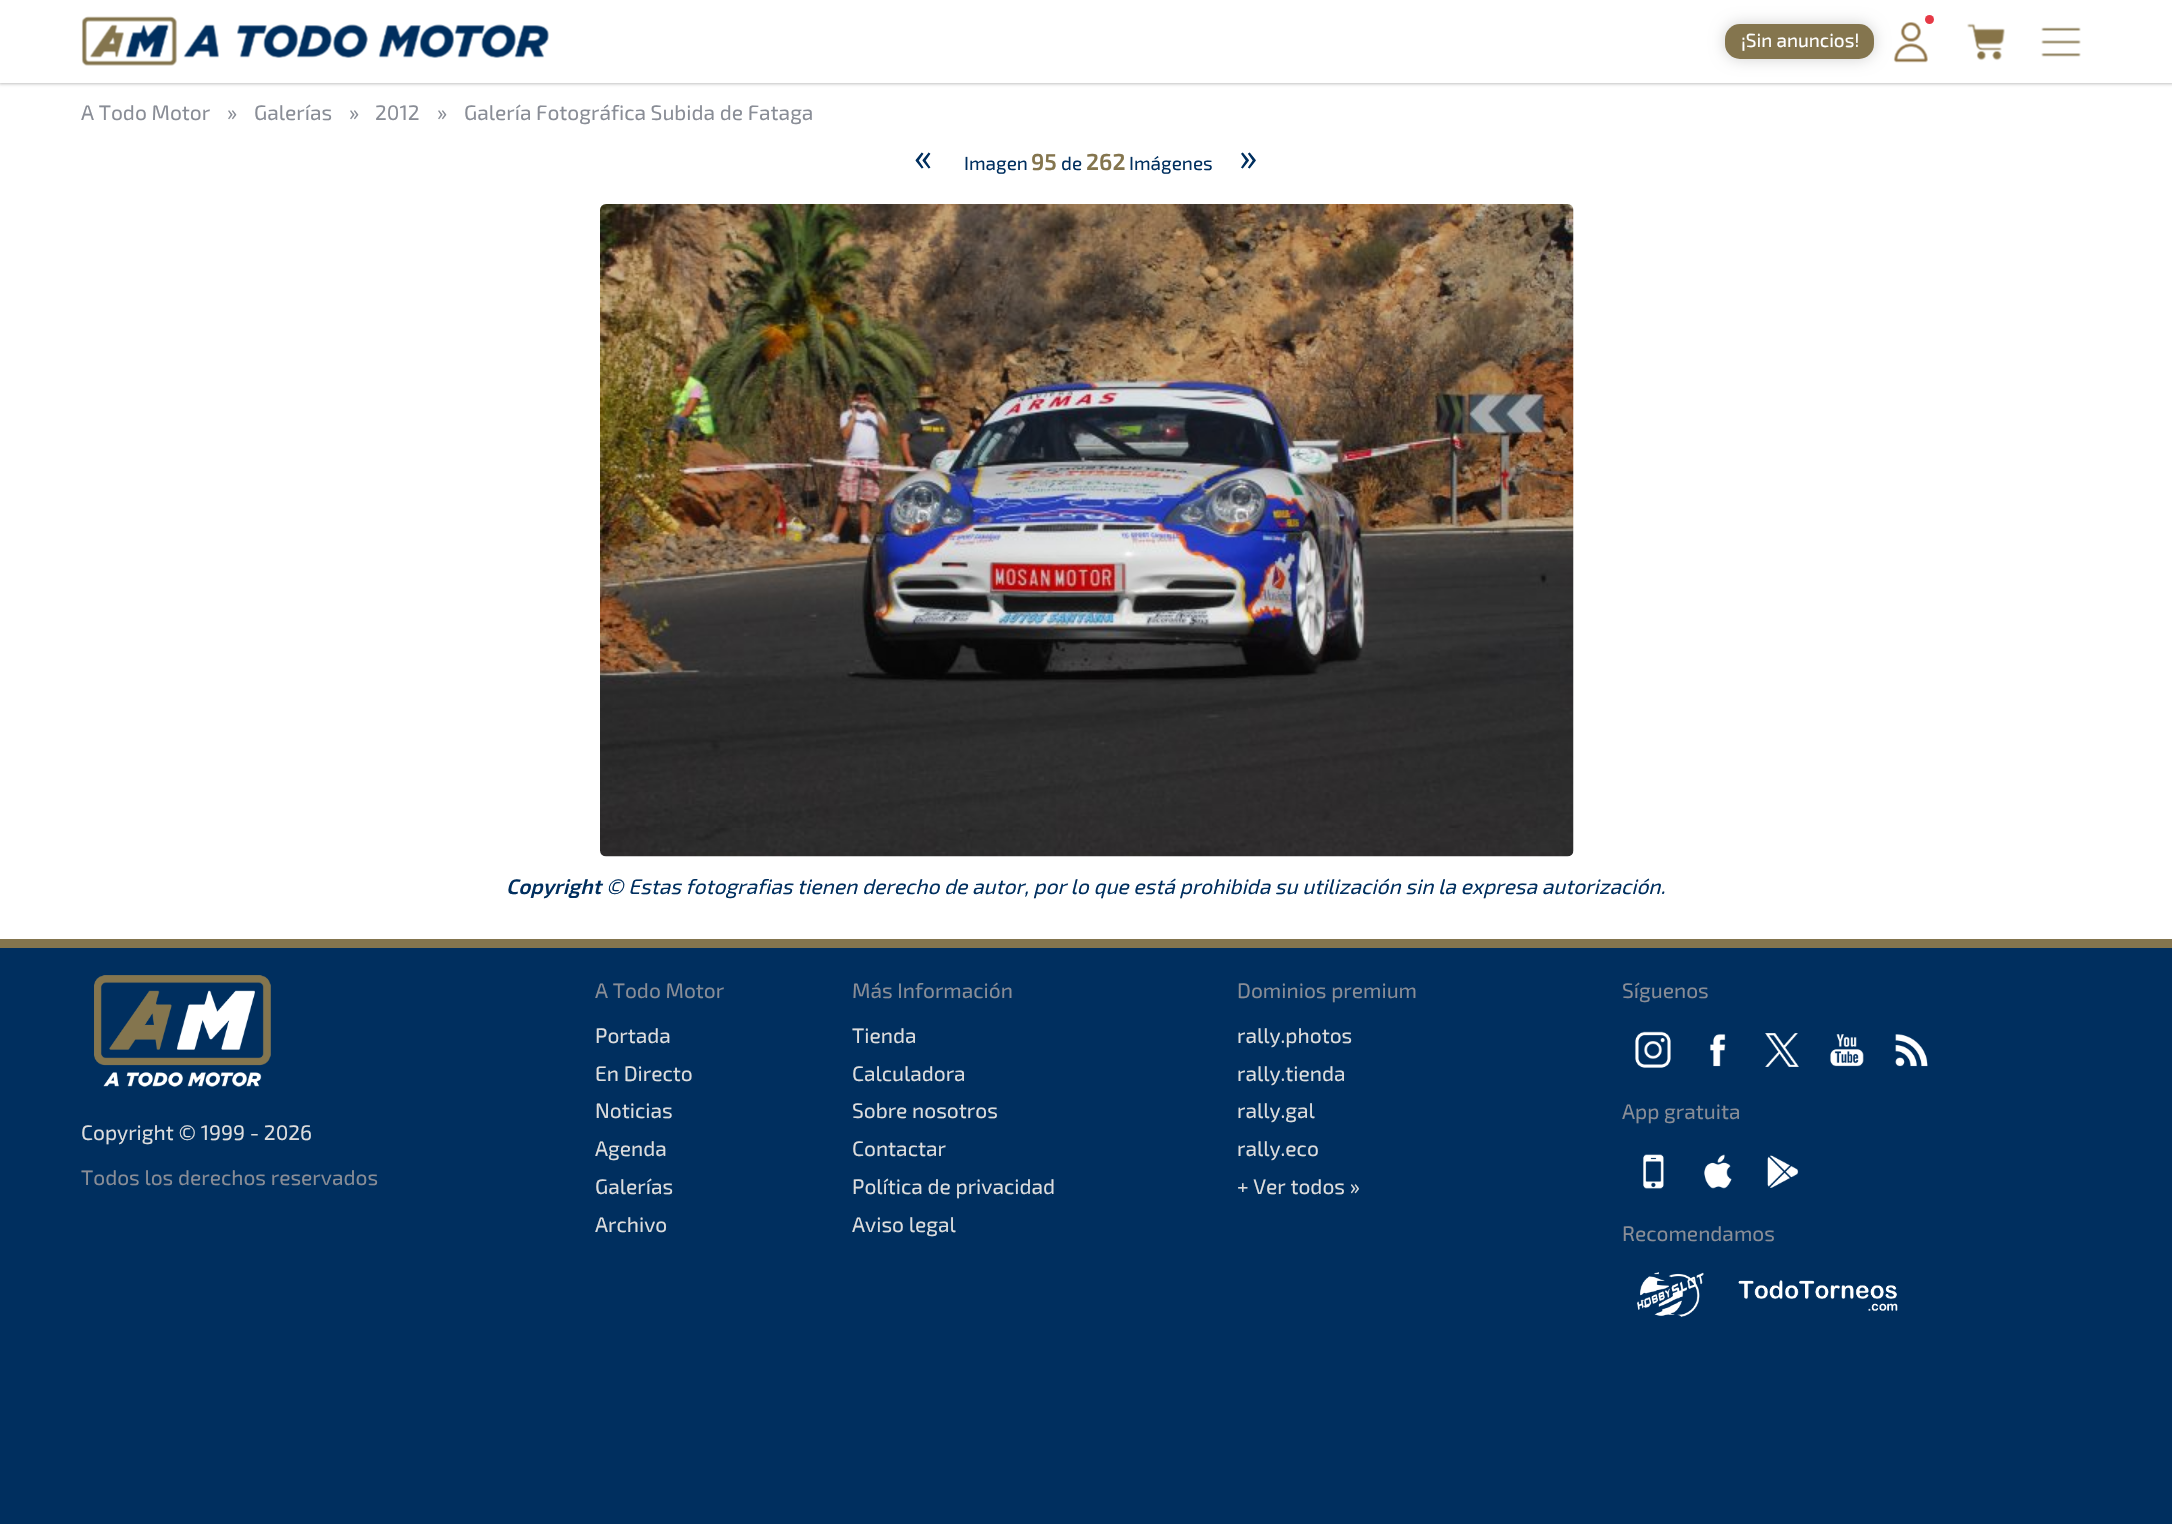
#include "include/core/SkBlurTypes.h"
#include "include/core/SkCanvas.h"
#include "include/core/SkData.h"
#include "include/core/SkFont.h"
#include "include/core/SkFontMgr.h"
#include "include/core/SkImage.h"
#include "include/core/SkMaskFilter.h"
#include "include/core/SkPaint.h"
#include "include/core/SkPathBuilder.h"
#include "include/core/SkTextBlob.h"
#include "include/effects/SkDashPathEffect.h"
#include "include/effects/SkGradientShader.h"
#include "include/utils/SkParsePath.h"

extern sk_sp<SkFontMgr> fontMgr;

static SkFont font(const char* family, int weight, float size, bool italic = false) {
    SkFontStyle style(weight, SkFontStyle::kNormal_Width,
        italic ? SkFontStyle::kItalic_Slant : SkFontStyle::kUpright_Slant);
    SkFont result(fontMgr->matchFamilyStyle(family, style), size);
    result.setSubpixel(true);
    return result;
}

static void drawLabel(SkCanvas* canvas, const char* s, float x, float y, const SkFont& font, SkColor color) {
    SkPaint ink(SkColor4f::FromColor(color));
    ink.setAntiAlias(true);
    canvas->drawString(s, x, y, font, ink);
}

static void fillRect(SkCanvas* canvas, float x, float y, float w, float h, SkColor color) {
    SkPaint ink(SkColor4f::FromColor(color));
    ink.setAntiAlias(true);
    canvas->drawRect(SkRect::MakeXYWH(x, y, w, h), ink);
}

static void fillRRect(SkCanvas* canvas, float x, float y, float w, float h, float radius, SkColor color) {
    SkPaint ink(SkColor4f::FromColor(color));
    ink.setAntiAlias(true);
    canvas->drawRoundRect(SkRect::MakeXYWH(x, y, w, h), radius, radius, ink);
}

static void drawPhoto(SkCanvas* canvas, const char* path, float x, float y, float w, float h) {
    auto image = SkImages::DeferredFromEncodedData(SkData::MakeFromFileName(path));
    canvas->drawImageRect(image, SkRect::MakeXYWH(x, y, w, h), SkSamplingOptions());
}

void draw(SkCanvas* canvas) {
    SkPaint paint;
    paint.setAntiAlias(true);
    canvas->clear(0xFF002F5F);
    fillRect(canvas, 0, 83, 2172, 856, 0xFFFFFFFF);
    paint.setColor(0xFFC0C0C0);
    paint.setMaskFilter(SkMaskFilter::MakeBlur(kNormal_SkBlurStyle, 1.5f));
    canvas->drawRect(SkRect::MakeXYWH(-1, -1, 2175, 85), paint);
    paint.setMaskFilter(nullptr);
    fillRect(canvas, 0, 0, 2172, 83, 0xFFFFFFFF);
    drawPhoto(canvas, "assets/img1.png", 81, 16, 468, 50);
    paint.setColor(0x2E000000);
    paint.setMaskFilter(SkMaskFilter::MakeBlur(kNormal_SkBlurStyle, 7.5f));
    canvas->drawRoundRect(SkRect::MakeXYWH(1725, 24, 149, 35), 15, 15, paint);
    paint.setMaskFilter(nullptr);
    fillRRect(canvas, 1725, 24, 149, 35, 15, 0xFF84754E);
    SkFont font1 = font("Exo 2", 400, 19);
    drawLabel(canvas, "¡Sin anuncios!", 1741, 47, font1, 0xFFFFFFFF);
    drawPhoto(canvas, "assets/img2.png", 1893, 22, 35, 41);
    paint.setColor(0xFFE63946);
    canvas->drawCircle(1929.5f, 19.5f, 4.5f, paint);
    drawPhoto(canvas, "assets/img3.png", 1967, 23, 38, 38);
    drawPhoto(canvas, "assets/img4.png", 2041, 27, 40, 30);
    SkFont font2 = font("Exo 2", 400, 21);
    drawLabel(canvas, "A Todo Motor", 81, 120, font2, 0xFF898D96);
    drawLabel(canvas, "»", 227, 120, font2, 0xFF898D96);
    drawLabel(canvas, "Galerías", 254, 120, font2, 0xFF898D96);
    drawLabel(canvas, "»", 349, 120, font2, 0xFF898D96);
    drawLabel(canvas, "2012", 375, 120, font2, 0xFF898D96);
    drawLabel(canvas, "»", 437, 120, font2, 0xFF898D96);
    drawLabel(canvas, "Galería Fotográfica Subida de Fataga", 464, 120, font2, 0xFF898D96);
    SkFont font3 = font("Exo 2", 400, 38);
    drawLabel(canvas, "«", 914, 170, font3, 0xFF002F5F);
    drawLabel(canvas, "Imagen", 964, 170, font1, 0xFF002F5F);
    SkFont font4 = font("Exo 2", 600, 23);
    drawLabel(canvas, "95", 1031, 170, font4, 0xFF84754E);
    drawLabel(canvas, "de", 1061, 170, font1, 0xFF002F5F);
    drawLabel(canvas, "262", 1086, 170, font4, 0xFF84754E);
    drawLabel(canvas, "Imágenes", 1129, 170, font1, 0xFF002F5F);
    drawLabel(canvas, "»", 1239, 170, font3, 0xFF002F5F);
    drawPhoto(canvas, "assets/img5.png", 600, 204, 974, 653);
    SkFont font5 = font("Exo 2", 600, 21, true);
    drawLabel(canvas, "Copyright", 506, 894, font5, 0xFF002F5F);
    SkFont font6 = font("Exo 2", 400, 21, true);
    drawLabel(canvas, "© Estas fotografias tienen derecho de autor, por lo que está prohibida su utilización sin la expresa autorización.", 606, 894, font6, 0xFF002F5F);
    fillRect(canvas, 0, 939, 2172, 9, 0xFF84754E);
    drawPhoto(canvas, "assets/img6.png", 94, 975, 177, 112);
    drawLabel(canvas, "Copyright © 1999 - 2026", 81, 1140, font2, 0xFFDDDDDD);
    drawLabel(canvas, "Todos los derechos reservados", 81, 1185, font2, 0xFF898D96);
    drawLabel(canvas, "A Todo Motor", 595, 998, font2, 0xFF898D96);
    drawLabel(canvas, "Portada", 595, 1043, font2, 0xFFDDDDDD);
    drawLabel(canvas, "En Directo", 595, 1081, font2, 0xFFDDDDDD);
    drawLabel(canvas, "Noticias", 595, 1118, font2, 0xFFDDDDDD);
    drawLabel(canvas, "Agenda", 595, 1156, font2, 0xFFDDDDDD);
    drawLabel(canvas, "Galerías", 595, 1194, font2, 0xFFDDDDDD);
    drawLabel(canvas, "Archivo", 595, 1232, font2, 0xFFDDDDDD);
    drawLabel(canvas, "Más Información", 852, 998, font2, 0xFF898D96);
    drawLabel(canvas, "Tienda", 852, 1043, font2, 0xFFDDDDDD);
    drawLabel(canvas, "Calculadora", 852, 1081, font2, 0xFFDDDDDD);
    drawLabel(canvas, "Sobre nosotros", 852, 1118, font2, 0xFFDDDDDD);
    drawLabel(canvas, "Contactar", 852, 1156, font2, 0xFFDDDDDD);
    drawLabel(canvas, "Política de privacidad", 852, 1194, font2, 0xFFDDDDDD);
    drawLabel(canvas, "Aviso legal", 852, 1232, font2, 0xFFDDDDDD);
    drawLabel(canvas, "Dominios premium", 1237, 998, font2, 0xFF898D96);
    drawLabel(canvas, "rally.photos", 1237, 1043, font2, 0xFFDDDDDD);
    drawLabel(canvas, "rally.tienda", 1237, 1081, font2, 0xFFDDDDDD);
    drawLabel(canvas, "rally.gal", 1237, 1118, font2, 0xFFDDDDDD);
    drawLabel(canvas, "rally.eco", 1237, 1156, font2, 0xFFDDDDDD);
    drawLabel(canvas, "+ Ver todos »", 1237, 1194, font2, 0xFFDDDDDD);
    drawLabel(canvas, "Síguenos", 1622, 998, font2, 0xFF898D96);
    drawPhoto(canvas, "assets/img7.png", 1635, 1031, 36, 37);
    drawPhoto(canvas, "assets/img8.png", 1710, 1034, 16, 33);
    drawPhoto(canvas, "assets/img9.png", 1765, 1033, 34, 34);
    drawPhoto(canvas, "assets/img10.png", 1830, 1034, 34, 33);
    drawPhoto(canvas, "assets/img11.png", 1895, 1034, 33, 33);
    drawLabel(canvas, "App gratuita", 1622, 1119, font2, 0xFF898D96);
    drawPhoto(canvas, "assets/img12.png", 1643, 1154, 21, 35);
    drawPhoto(canvas, "assets/img13.png", 1704, 1154, 28, 35);
    drawPhoto(canvas, "assets/img14.png", 1767, 1155, 32, 33);
    drawLabel(canvas, "Recomendamos", 1622, 1241, font2, 0xFF898D96);
    drawPhoto(canvas, "assets/img15.png", 1637, 1272, 67, 45);
    drawPhoto(canvas, "assets/img16.png", 1738, 1280, 160, 31);
}
